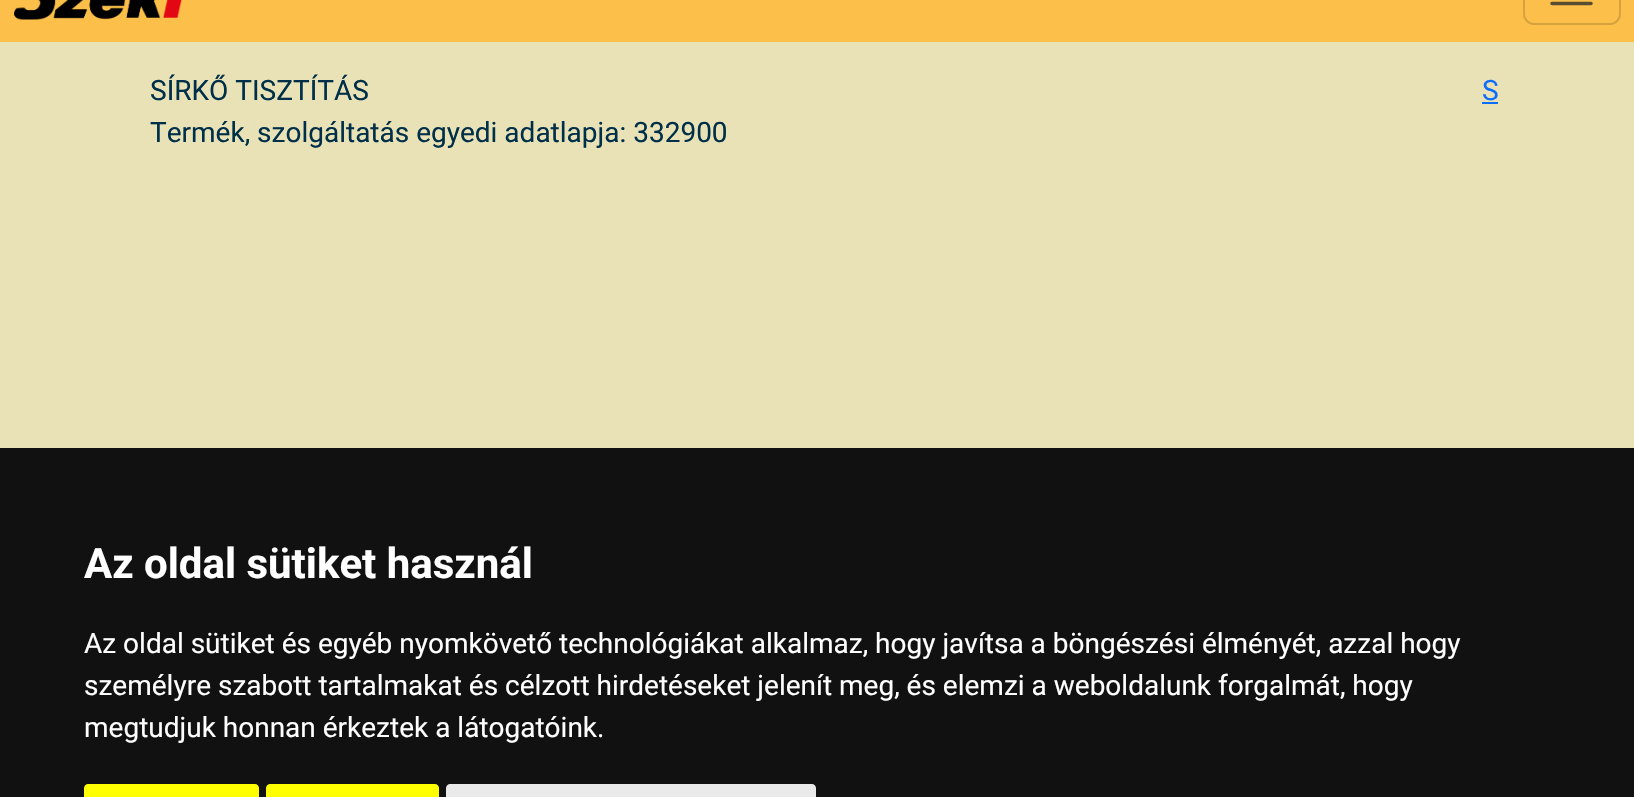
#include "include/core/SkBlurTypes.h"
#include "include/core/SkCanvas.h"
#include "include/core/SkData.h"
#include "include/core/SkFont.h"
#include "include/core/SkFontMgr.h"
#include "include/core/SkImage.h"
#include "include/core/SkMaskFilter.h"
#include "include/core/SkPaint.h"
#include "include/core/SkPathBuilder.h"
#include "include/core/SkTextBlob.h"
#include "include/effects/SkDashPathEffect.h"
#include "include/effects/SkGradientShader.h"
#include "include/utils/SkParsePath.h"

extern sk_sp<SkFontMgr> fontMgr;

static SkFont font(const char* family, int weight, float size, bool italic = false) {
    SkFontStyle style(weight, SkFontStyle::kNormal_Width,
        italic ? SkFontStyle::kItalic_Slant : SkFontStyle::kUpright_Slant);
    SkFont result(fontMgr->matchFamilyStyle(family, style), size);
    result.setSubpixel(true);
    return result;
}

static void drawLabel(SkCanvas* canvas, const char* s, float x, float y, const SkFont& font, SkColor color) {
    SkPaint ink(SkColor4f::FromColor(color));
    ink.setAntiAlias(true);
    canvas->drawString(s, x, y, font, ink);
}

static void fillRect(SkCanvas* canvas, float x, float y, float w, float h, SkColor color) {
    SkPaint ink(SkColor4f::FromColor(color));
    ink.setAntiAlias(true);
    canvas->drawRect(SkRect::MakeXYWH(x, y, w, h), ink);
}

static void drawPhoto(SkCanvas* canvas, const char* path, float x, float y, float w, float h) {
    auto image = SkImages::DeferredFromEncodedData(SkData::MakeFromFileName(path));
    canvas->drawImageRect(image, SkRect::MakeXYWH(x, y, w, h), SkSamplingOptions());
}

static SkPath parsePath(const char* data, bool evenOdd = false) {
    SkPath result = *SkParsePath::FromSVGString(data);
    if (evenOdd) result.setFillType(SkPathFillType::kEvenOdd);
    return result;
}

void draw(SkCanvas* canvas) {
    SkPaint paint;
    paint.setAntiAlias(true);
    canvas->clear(0xFFEAE2B7);
    fillRect(canvas, 0, 0, 1634, 42, 0xFFFCBF49);
    drawPhoto(canvas, "assets/img1.png", 14, 0, 168, 20);
    paint.setStroke(true);
    paint.setStrokeWidth(2);
    paint.setColor(0xFFD6A23E);
    canvas->drawRoundRect(SkRect::MakeXYWH(1524, -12, 96, 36), 10, 10, paint);
    paint.setStrokeWidth(3.5f);
    paint.setStrokeCap(SkPaint::kRound_Cap);
    paint.setColor(0xFF584C31);
    canvas->drawPath(parsePath("M1552-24.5H1591M1552-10.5H1591M1552 3.5H1591"), paint);
    SkFont font1 = font("Roboto", 400, 28);
    drawLabel(canvas, "SÍRKŐ TISZTÍTÁS", 150, 100, font1, 0xFF003049);
    drawLabel(canvas, "S", 1482, 100, font1, 0xFF0D6EFD);
    fillRect(canvas, 1482, 102, 16, 2, 0xFF0D6EFD);
    drawLabel(canvas, "Termék, szolgáltatás egyedi adatlapja: 332900", 150, 142, font1, 0xFF003049);
    fillRect(canvas, 0, 448, 1634, 349, 0xFF111111);
    SkFont font2 = font("Roboto", 700, 42);
    drawLabel(canvas, "Az oldal sütiket használ", 84, 578, font2, 0xFFFFFFFF);
    drawLabel(canvas, "Az oldal sütiket és egyéb nyomkövető technológiákat alkalmaz, hogy javítsa a böngészési élményét, azzal hogy", 84, 653, font1, 0xFFFFFFFF);
    drawLabel(canvas, "személyre szabott tartalmakat és célzott hirdetéseket jelenít meg, és elemzi a weboldalunk forgalmát, hogy", 84, 695, font1, 0xFFFFFFFF);
    drawLabel(canvas, "megtudjuk honnan érkeztek a látogatóink.", 84, 737, font1, 0xFFFFFFFF);
    paint.setStroke(false);
    paint.setColor(0xFFFFFF00);
    canvas->drawPath(parsePath("M88 784H255C257 784 259 786 259 788V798H84V788C84 786 86 784 88 784Z"), paint);
    canvas->drawPath(parsePath("M270 784H435C437 784 439 786 439 788V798H266V788C266 786 268 784 270 784Z"), paint);
    paint.setColor(0xFFEAEAEA);
    canvas->drawPath(parsePath("M450 784H812C814 784 816 786 816 788V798H446V788C446 786 448 784 450 784Z"), paint);
}
